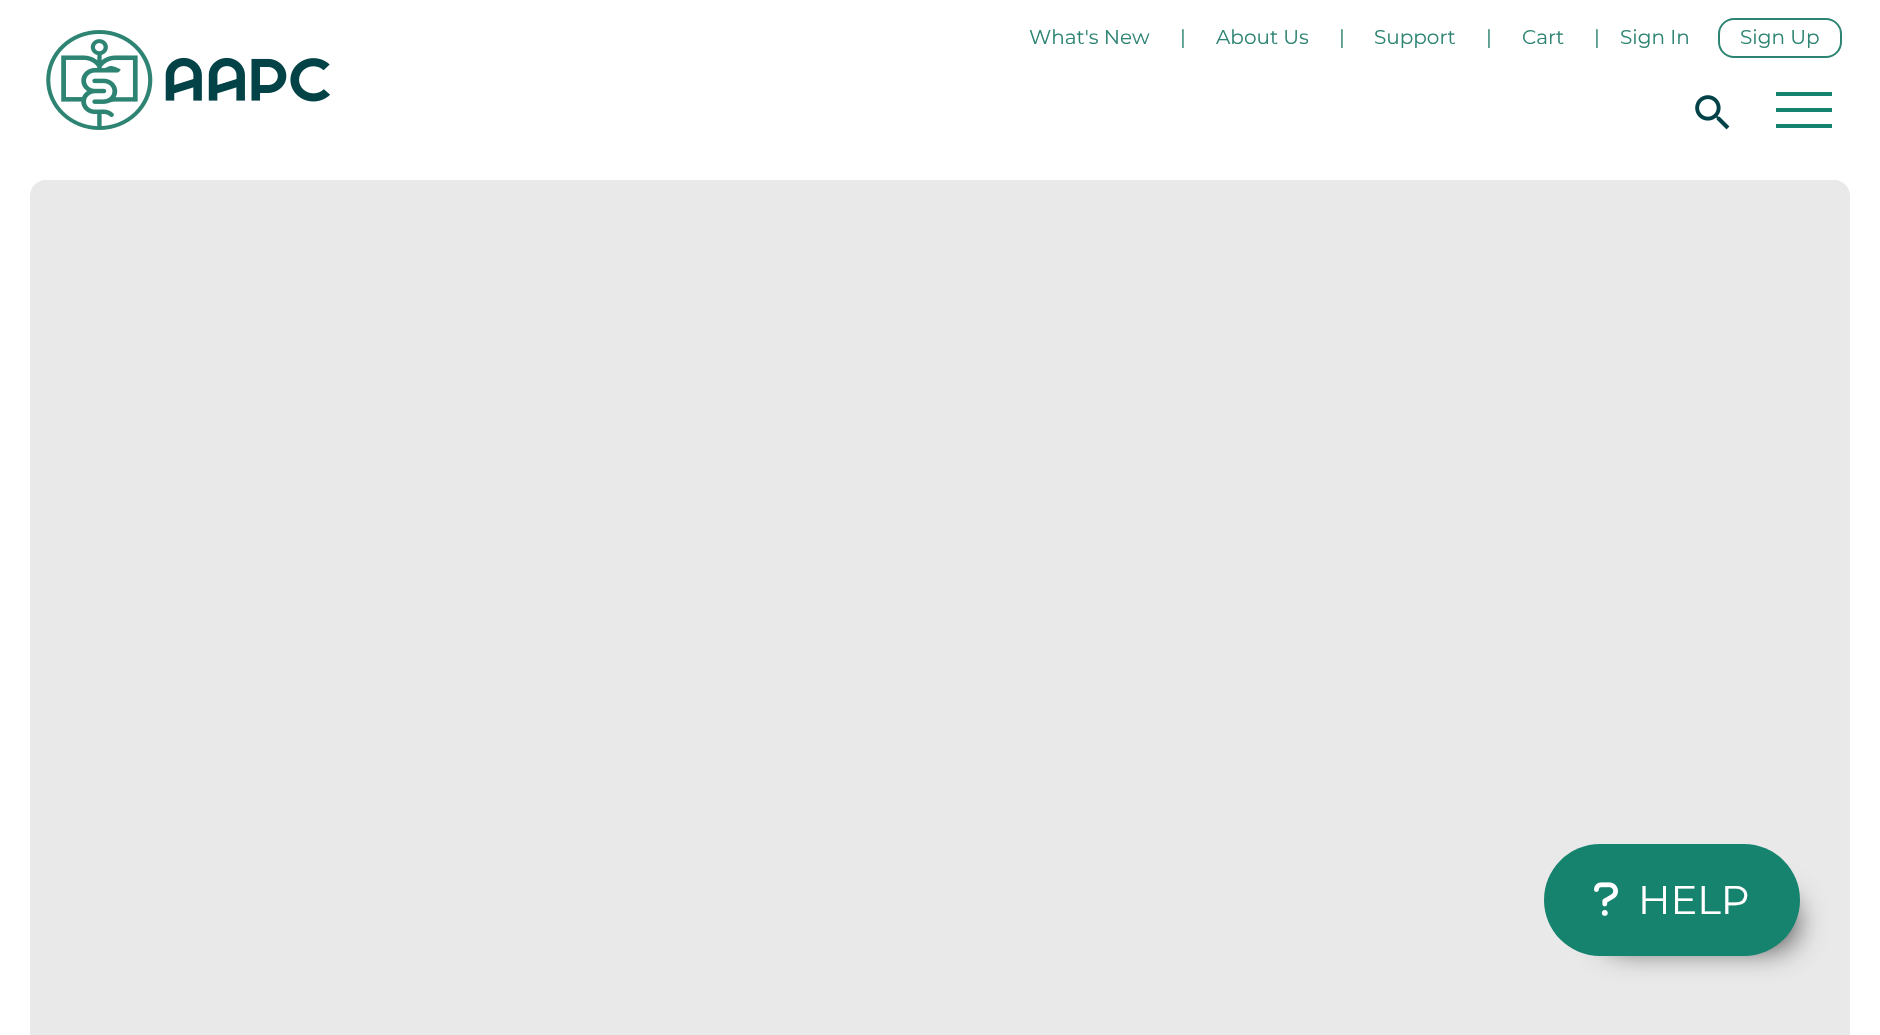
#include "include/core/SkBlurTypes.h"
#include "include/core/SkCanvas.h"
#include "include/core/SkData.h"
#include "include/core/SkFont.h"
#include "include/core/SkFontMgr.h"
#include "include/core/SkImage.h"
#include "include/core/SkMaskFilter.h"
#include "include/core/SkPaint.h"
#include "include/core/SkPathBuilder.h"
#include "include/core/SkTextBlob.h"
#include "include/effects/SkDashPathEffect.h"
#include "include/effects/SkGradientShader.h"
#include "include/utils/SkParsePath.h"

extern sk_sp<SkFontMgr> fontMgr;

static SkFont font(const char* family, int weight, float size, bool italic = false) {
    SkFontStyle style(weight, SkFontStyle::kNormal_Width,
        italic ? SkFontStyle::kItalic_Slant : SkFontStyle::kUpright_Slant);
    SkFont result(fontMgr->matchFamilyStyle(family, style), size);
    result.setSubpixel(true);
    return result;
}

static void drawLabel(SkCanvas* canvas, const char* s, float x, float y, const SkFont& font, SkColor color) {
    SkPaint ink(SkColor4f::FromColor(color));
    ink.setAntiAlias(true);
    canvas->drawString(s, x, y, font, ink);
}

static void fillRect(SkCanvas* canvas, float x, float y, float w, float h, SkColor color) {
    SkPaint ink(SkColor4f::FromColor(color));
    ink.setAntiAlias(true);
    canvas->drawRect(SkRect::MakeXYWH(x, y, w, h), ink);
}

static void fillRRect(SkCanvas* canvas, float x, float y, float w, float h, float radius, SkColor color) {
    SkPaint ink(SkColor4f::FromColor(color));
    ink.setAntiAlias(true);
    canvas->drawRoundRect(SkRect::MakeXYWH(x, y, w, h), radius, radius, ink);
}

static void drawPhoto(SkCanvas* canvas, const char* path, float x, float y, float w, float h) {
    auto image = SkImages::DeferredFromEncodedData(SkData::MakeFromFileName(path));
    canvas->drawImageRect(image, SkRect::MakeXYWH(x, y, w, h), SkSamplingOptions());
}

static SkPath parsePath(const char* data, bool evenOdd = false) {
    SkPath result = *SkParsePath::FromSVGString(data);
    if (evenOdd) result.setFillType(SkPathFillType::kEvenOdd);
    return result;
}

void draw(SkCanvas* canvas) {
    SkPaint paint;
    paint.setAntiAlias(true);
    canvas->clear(0xFFFFFFFF);
    drawPhoto(canvas, "assets/img1.png", 46, 30, 284, 100);
    SkFont font1 = font("Montserrat", 400, 20);
    drawLabel(canvas, "What's New", 1029, 44, font1, 0xFF2E8473);
    drawLabel(canvas, "|", 1180, 44, font1, 0xFF2E8473);
    drawLabel(canvas, "About Us", 1216, 44, font1, 0xFF2E8473);
    drawLabel(canvas, "|", 1339, 44, font1, 0xFF2E8473);
    drawLabel(canvas, "Support", 1374, 44, font1, 0xFF2E8473);
    drawLabel(canvas, "|", 1486, 44, font1, 0xFF2E8473);
    drawLabel(canvas, "Cart", 1522, 44, font1, 0xFF2E8473);
    drawLabel(canvas, "|", 1594, 44, font1, 0xFF2E8473);
    drawLabel(canvas, "Sign In", 1620, 44, font1, 0xFF2E8473);
    paint.setStroke(true);
    paint.setStrokeWidth(2);
    paint.setColor(0xFF2E8473);
    canvas->drawRoundRect(SkRect::MakeXYWH(1719, 19, 122, 38), 15, 15, paint);
    drawLabel(canvas, "Sign Up", 1740, 44, font1, 0xFF2E8473);
    drawPhoto(canvas, "assets/img2.png", 1695, 95, 35, 35);
    fillRect(canvas, 1776, 92, 56, 4, 0xFF16836F);
    fillRect(canvas, 1776, 108, 56, 4, 0xFF16836F);
    fillRect(canvas, 1776, 124, 56, 4, 0xFF16836F);
    paint.setStroke(false);
    paint.setColor(0xFFE9E9E9);
    canvas->drawPath(parsePath("M46 180H1834C1843 180 1850 187 1850 196V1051H30V196C30 187 37 180 46 180Z"), paint);
    paint.setColor(0xBF000000);
    paint.setMaskFilter(SkMaskFilter::MakeBlur(kNormal_SkBlurStyle, 15));
    canvas->drawRoundRect(SkRect::MakeXYWH(1600, 896, 196, 52), 26, 26, paint);
    paint.setMaskFilter(nullptr);
    fillRRect(canvas, 1544, 844, 256, 112, 56, 0xFF16836F);
    drawPhoto(canvas, "assets/img3.png", 1594, 882, 24, 34);
    SkFont font2 = font("Montserrat", 400, 40);
    drawLabel(canvas, "HELP", 1638, 914, font2, 0xFFFFFFFF);
}
